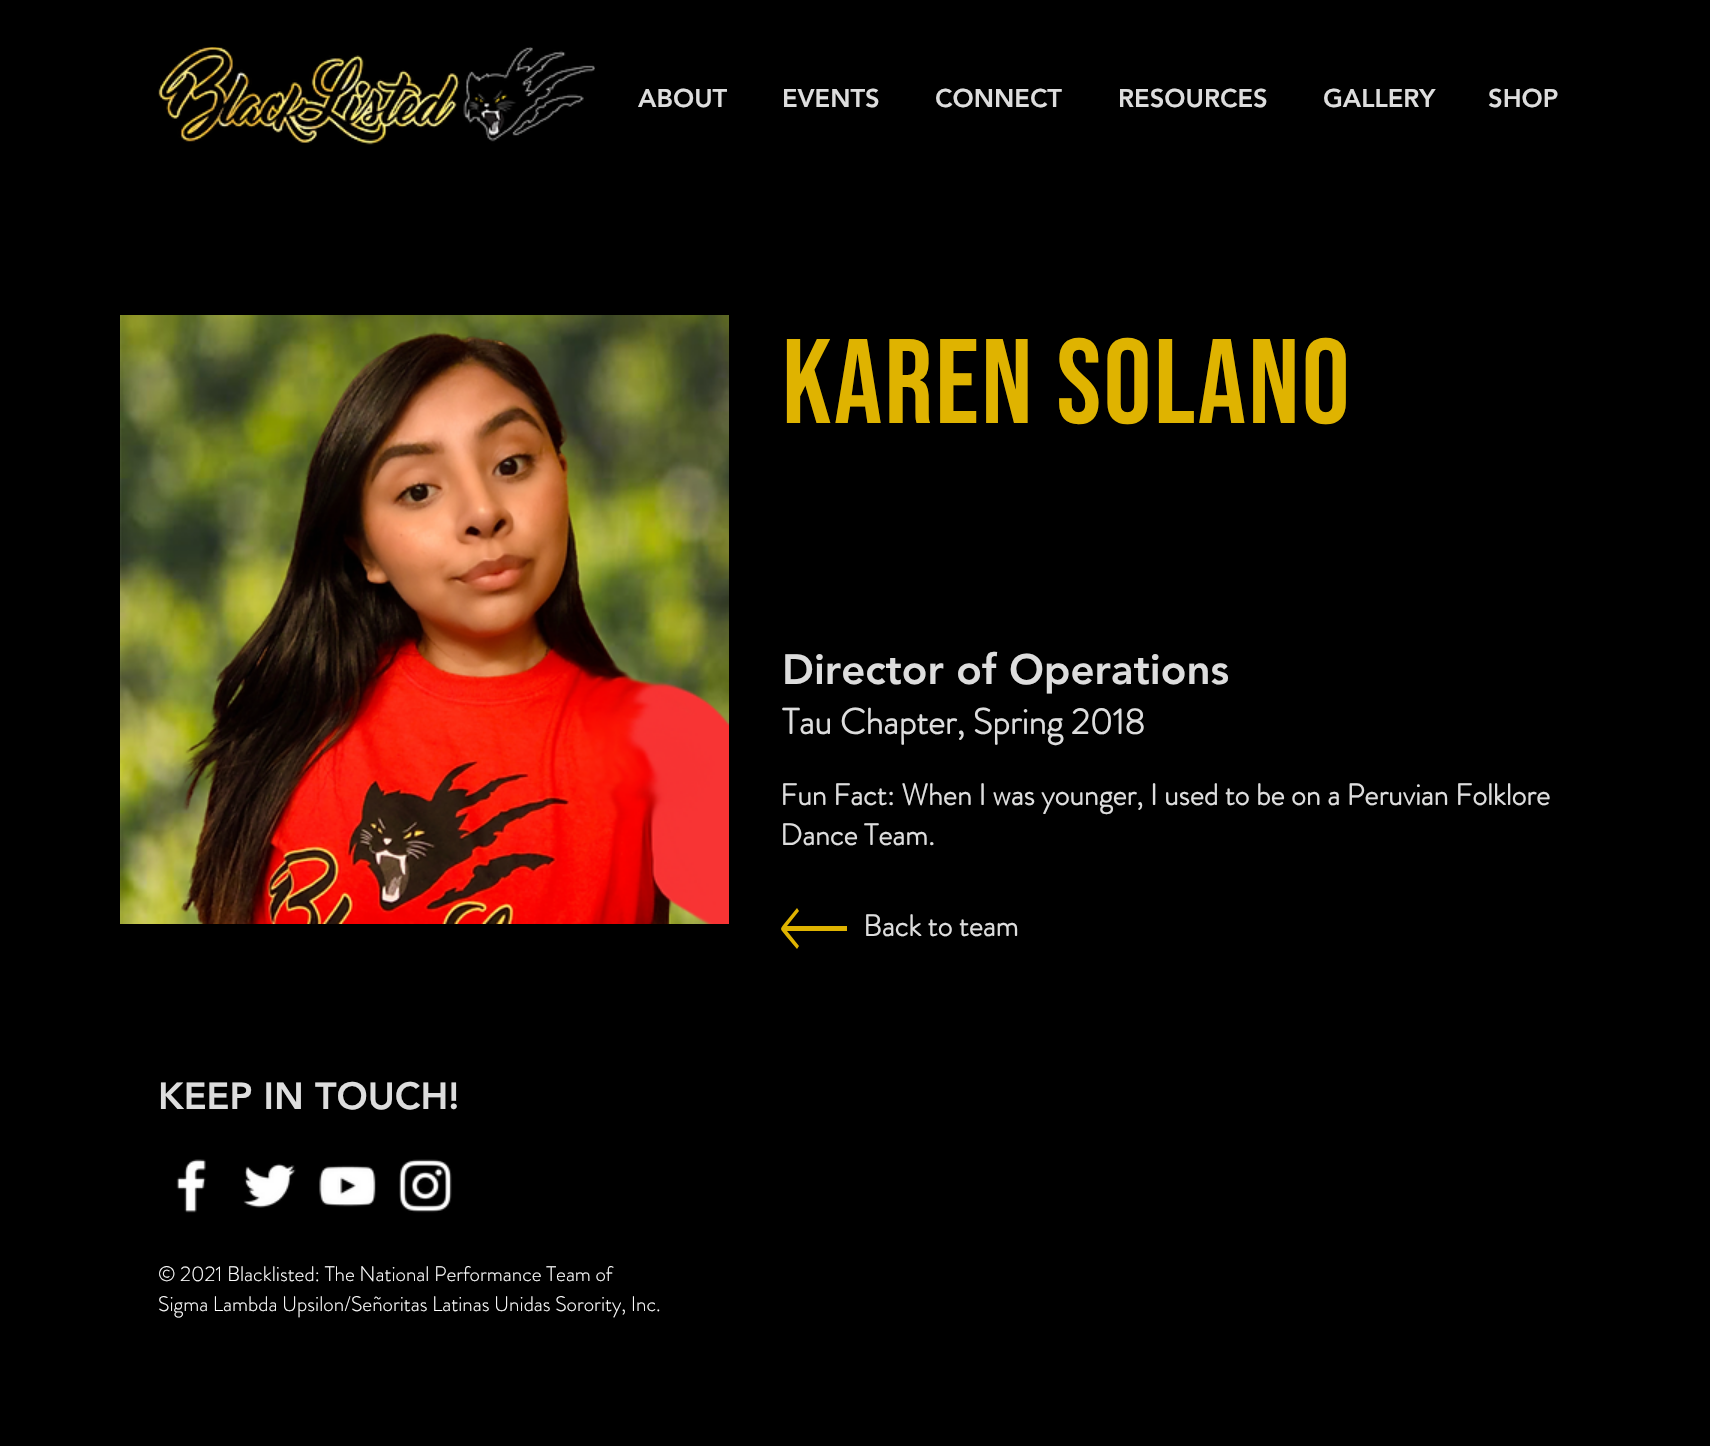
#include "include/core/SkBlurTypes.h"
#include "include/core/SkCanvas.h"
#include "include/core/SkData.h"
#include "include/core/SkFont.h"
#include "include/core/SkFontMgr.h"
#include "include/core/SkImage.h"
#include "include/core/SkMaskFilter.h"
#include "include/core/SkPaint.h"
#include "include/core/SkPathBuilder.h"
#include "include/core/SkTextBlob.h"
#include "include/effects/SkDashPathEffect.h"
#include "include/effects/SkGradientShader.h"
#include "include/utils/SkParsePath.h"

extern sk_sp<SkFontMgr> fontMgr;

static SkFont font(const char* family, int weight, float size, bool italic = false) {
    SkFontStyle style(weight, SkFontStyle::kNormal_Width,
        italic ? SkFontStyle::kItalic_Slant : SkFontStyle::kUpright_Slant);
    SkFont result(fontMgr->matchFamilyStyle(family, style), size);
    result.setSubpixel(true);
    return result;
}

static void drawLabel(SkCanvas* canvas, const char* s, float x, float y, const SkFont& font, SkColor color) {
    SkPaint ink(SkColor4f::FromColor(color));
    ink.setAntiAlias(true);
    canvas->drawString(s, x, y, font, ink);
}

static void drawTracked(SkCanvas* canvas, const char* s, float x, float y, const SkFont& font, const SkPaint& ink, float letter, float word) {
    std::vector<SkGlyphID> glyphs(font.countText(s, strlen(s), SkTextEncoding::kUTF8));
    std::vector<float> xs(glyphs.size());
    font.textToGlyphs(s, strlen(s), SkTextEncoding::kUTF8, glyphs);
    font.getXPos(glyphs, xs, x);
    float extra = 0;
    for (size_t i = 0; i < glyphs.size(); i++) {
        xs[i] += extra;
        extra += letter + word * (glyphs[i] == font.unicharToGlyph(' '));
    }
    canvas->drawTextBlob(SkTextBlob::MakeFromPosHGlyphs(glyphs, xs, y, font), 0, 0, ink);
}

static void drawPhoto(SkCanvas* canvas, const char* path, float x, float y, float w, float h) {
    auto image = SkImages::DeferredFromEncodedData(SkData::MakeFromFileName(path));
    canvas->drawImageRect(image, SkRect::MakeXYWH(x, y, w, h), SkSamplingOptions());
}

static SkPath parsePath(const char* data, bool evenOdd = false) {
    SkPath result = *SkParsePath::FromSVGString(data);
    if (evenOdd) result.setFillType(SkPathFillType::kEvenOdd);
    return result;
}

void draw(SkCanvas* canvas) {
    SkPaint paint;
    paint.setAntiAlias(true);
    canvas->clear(0xFF000000);
    drawPhoto(canvas, "assets/img1.png", 158, 47, 437, 98);
    SkFont font1 = font("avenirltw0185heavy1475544", 900, 25.5f);
    drawLabel(canvas, "ABOUT", 638, 107, font1, 0xFFDDDDDD);
    drawLabel(canvas, "EVENTS", 782, 107, font1, 0xFFDDDDDD);
    drawLabel(canvas, "CONNECT", 935, 107, font1, 0xFFDDDDDD);
    drawLabel(canvas, "RESOURCES", 1118, 107, font1, 0xFFDDDDDD);
    drawLabel(canvas, "GALLERY", 1323, 107, font1, 0xFFDDDDDD);
    drawLabel(canvas, "SHOP", 1488, 107, font1, 0xFFDDDDDD);
    drawPhoto(canvas, "assets/img2.png", 120, 315, 609, 609);
    SkFont font2 = font("Bebas Neue", 400, 120);
    paint.setColor(0xFFDFB300);
    drawTracked(canvas, "KAREN SOLANO", 782, 423, font2, paint, 2.4f, 0);
    SkFont font3 = font("avenirltw0185heavy1475544", 900, 42);
    drawLabel(canvas, "Director of Operations", 782, 684, font3, 0xFFDDDDDD);
    SkFont font4 = font("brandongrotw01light", 700, 36);
    drawLabel(canvas, "Tau Chapter, Spring 2018", 782, 734, font4, 0xFFDDDDDD);
    SkFont font5 = font("brandongrotw01light", 700, 30);
    drawLabel(canvas, "Fun Fact: When I was younger, I used to be on a Peruvian Folklore", 780, 805, font5, 0xFFDDDDDD);
    drawLabel(canvas, "Dance Team.", 780, 845, font5, 0xFFDDDDDD);
    canvas->drawPath(parsePath("M797 908L784 924C779 930 781 929 786 936L797 949L799 946L787 931H847V926H787L799 911Z"), paint);
    drawLabel(canvas, "Back to team", 863, 936, font5, 0xFFDDDDDD);
    SkFont font6 = font("avenirltw0185heavy1475544", 900, 37.5f);
    drawLabel(canvas, "KEEP IN TOUCH!", 158, 1109, font6, 0xFFDDDDDD);
    drawPhoto(canvas, "assets/img3.png", 176, 1159, 30, 54);
    drawPhoto(canvas, "assets/img4.png", 243, 1163, 53, 45);
    drawPhoto(canvas, "assets/img5.png", 319, 1165, 57, 42);
    drawPhoto(canvas, "assets/img6.png", 399, 1159, 53, 54);
    SkFont font7 = font("brandongrotw01light", 300, 21);
    drawLabel(canvas, "© 2021 Blacklisted: The National Performance Team of", 158, 1281, font7, 0xFFFFFFFF);
    drawLabel(canvas, "Sigma Lambda Upsilon/Señoritas Latinas Unidas Sorority, Inc.", 158, 1311, font7, 0xFFFFFFFF);
}
